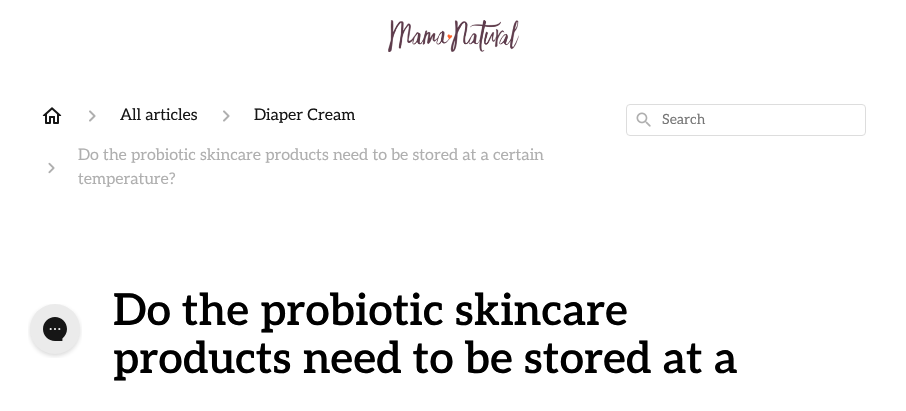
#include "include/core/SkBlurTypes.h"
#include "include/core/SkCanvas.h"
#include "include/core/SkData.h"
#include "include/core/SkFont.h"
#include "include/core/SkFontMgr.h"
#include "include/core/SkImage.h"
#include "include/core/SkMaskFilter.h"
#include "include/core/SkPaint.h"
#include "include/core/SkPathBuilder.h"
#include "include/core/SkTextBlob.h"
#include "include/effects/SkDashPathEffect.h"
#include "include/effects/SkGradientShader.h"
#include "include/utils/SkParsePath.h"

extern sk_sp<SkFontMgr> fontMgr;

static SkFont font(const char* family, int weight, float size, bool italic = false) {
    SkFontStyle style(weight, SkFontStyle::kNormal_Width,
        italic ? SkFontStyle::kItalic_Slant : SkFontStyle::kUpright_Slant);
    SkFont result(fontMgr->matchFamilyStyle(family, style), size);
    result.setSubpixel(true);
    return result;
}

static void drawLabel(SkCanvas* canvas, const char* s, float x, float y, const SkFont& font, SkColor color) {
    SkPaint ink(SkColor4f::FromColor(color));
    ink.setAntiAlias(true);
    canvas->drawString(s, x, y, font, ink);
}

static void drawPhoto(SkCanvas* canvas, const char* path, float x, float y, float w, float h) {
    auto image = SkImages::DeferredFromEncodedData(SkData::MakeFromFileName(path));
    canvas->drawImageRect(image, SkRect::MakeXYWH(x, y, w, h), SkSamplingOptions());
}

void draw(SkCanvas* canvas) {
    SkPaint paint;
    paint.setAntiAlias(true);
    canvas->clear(0xFFFFFFFF);
    drawPhoto(canvas, "assets/img1.png", 28, 304, 54, 54);
    drawPhoto(canvas, "assets/img2.png", 388, 20, 131, 32);
    drawPhoto(canvas, "assets/img3.png", 42, 107, 20, 17);
    drawPhoto(canvas, "assets/img4.png", 89, 110, 7, 12);
    SkFont font1 = font("Aleo", 400, 16);
    drawLabel(canvas, "All articles", 120, 120, font1, 0xFF161616);
    drawPhoto(canvas, "assets/img4.png", 223, 110, 7, 12);
    drawLabel(canvas, "Diaper Cream", 254, 120, font1, 0xFF161616);
    drawPhoto(canvas, "assets/img5.png", 48, 162, 7, 12);
    drawLabel(canvas, "Do the probiotic skincare products need to be stored at a certain", 78, 160, font1, 0xFFAFAFAF);
    drawLabel(canvas, "temperature?", 78, 184, font1, 0xFFAFAFAF);
    paint.setStroke(true);
    paint.setStrokeWidth(1);
    paint.setColor(0xFFDDDDDD);
    canvas->drawRoundRect(SkRect::MakeXYWH(626.5f, 104.5f, 239, 31), 3.5f, 3.5f, paint);
    drawPhoto(canvas, "assets/img6.png", 636, 112, 15, 15);
    SkFont font2 = font("Aleo", 400, 14);
    drawLabel(canvas, "Search", 662, 124, font2, 0xFF757575);
    SkFont font3 = font("Aleo", 600, 44);
    drawLabel(canvas, "Do the probiotic skincare", 113, 325, font3, 0xFF000000);
    drawLabel(canvas, "products need to be stored at a", 113, 373, font3, 0xFF000000);
}
